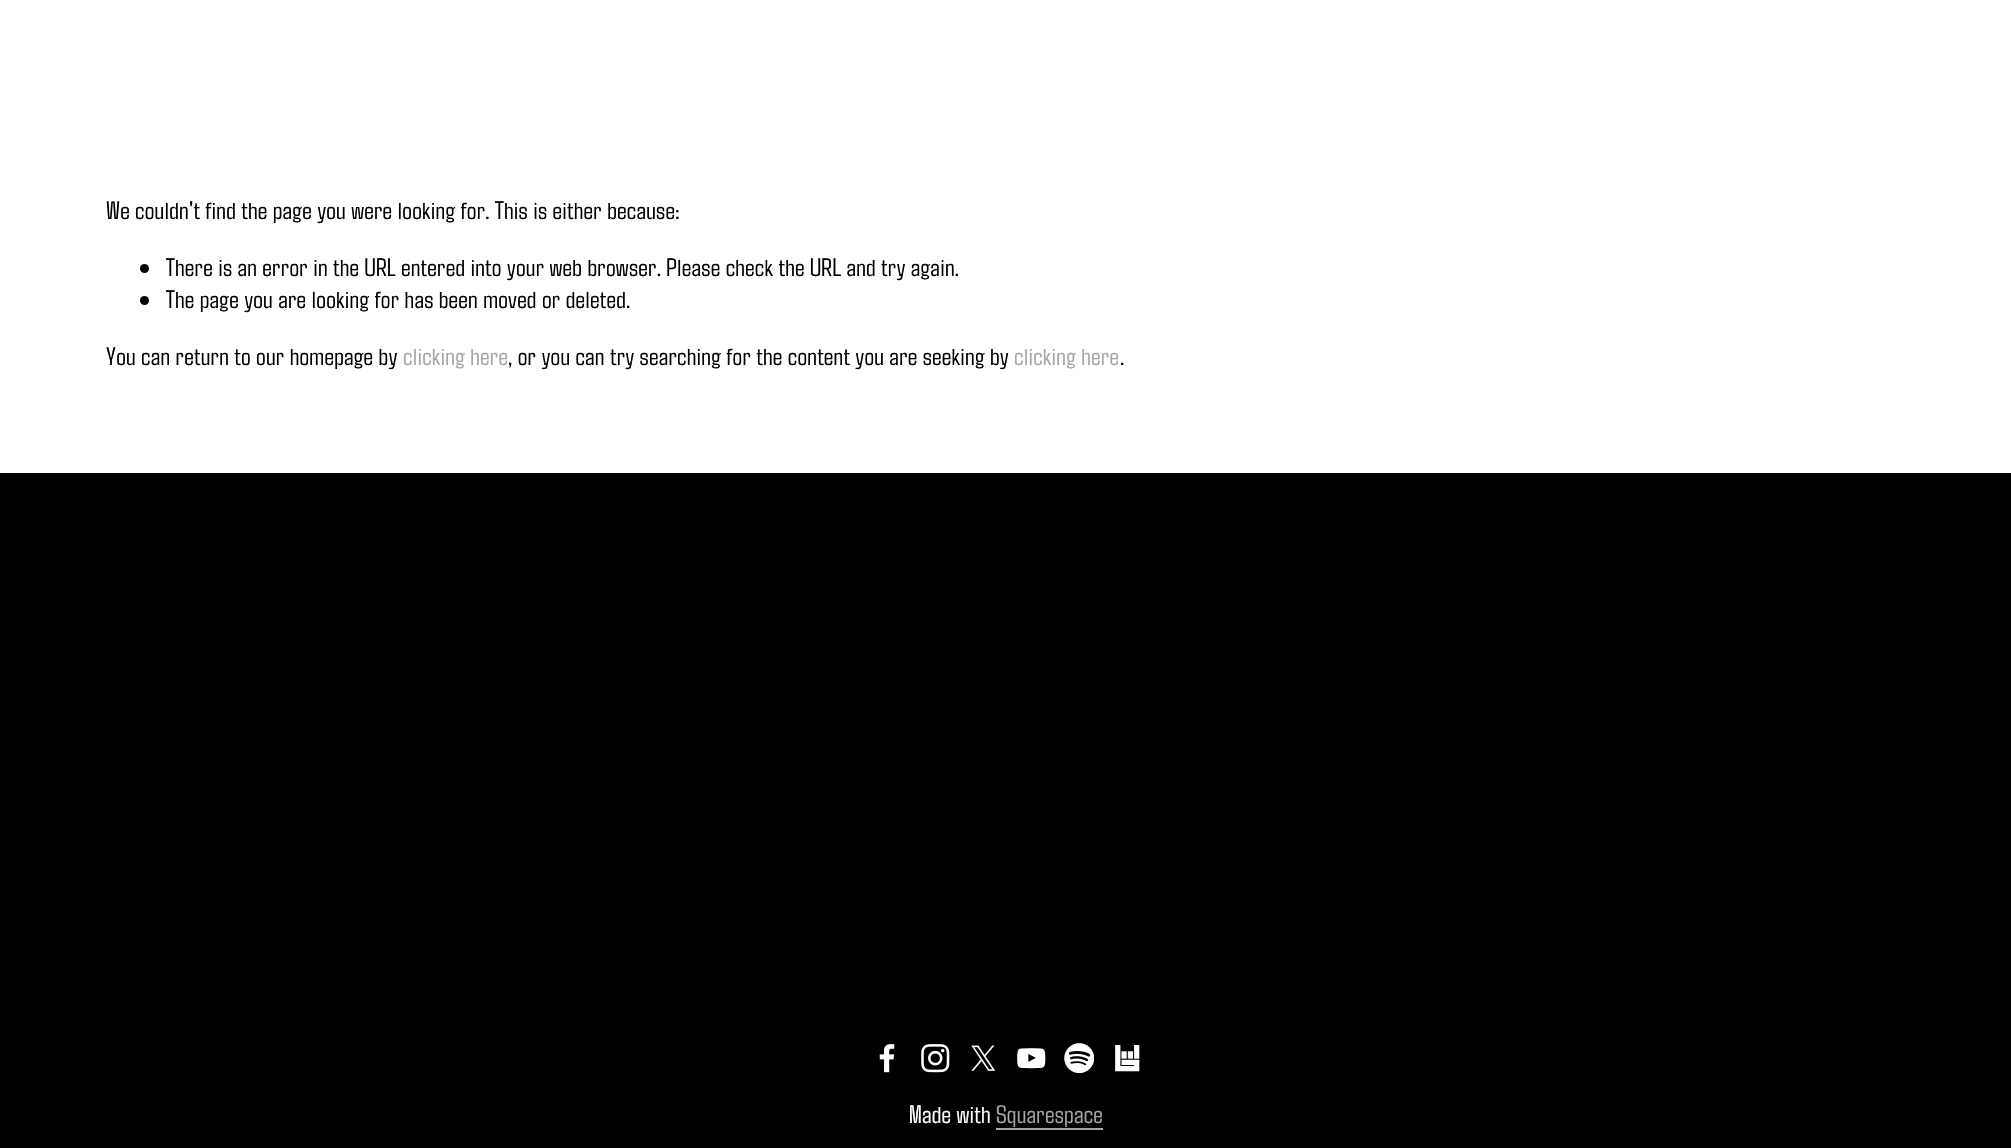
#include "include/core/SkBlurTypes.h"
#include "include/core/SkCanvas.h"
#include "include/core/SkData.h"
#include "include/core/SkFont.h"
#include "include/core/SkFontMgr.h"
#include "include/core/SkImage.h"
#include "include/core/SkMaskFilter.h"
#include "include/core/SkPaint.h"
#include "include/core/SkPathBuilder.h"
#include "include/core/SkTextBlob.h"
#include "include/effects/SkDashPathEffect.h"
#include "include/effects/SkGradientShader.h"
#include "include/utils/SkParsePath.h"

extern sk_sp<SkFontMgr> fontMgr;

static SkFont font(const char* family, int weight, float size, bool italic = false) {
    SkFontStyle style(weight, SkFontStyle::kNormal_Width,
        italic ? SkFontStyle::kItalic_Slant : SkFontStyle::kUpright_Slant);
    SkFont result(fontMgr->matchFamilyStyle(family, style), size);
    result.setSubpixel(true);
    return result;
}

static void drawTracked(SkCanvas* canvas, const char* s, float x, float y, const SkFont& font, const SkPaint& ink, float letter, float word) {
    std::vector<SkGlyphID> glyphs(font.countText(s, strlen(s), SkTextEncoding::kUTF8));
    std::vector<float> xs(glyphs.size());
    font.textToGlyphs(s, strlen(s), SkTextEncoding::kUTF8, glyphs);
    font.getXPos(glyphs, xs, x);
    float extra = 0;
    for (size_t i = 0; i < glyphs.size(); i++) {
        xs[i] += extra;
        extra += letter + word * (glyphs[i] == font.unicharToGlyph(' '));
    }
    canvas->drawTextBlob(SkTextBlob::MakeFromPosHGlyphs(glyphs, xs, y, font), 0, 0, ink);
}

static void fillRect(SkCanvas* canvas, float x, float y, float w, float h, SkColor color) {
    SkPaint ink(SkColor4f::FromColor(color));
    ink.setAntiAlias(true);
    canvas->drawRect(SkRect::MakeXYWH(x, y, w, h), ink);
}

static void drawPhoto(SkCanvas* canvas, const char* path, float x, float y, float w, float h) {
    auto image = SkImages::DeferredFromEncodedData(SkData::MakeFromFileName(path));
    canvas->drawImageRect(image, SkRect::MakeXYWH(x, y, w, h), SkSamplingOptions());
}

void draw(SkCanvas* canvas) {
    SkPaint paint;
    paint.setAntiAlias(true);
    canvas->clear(0xFFFFFFFF);
    SkFont font1 = font("Agdasima", 400, 25.4f);
    paint.setColor(0xFF000000);
    drawTracked(canvas, "We couldn't find the page you were looking for. This is either because:", 106, 219, font1, paint, 0.25f, 0);
    canvas->drawCircle(144.5f, 268.5f, 4.5f, paint);
    drawTracked(canvas, "There is an error in the URL entered into your web browser. Please check the URL and try again.", 166, 276, font1, paint, 0.25f, 0);
    canvas->drawCircle(144.5f, 300.5f, 4.5f, paint);
    drawTracked(canvas, "The page you are looking for has been moved or deleted.", 166, 308, font1, paint, 0.25f, 0);
    drawTracked(canvas, "You can return to our homepage by", 106, 365, font1, paint, 0.25f, 0);
    paint.setColor(0xFFA8A6A1);
    drawTracked(canvas, "clicking here", 403, 365, font1, paint, 0.25f, 0);
    paint.setColor(0xFF000000);
    drawTracked(canvas, ", or you can try searching for the content you are seeking by", 508, 365, font1, paint, 0.25f, 0);
    paint.setColor(0xFFA8A6A1);
    drawTracked(canvas, "clicking here", 1014, 365, font1, paint, 0.25f, 0);
    paint.setColor(0xFF000000);
    drawTracked(canvas, ".", 1120, 365, font1, paint, 0.25f, 0);
    fillRect(canvas, 0, 473, 2011, 675, 0xFF000000);
    drawPhoto(canvas, "assets/img1.png", 879, 1044, 16, 29);
    drawPhoto(canvas, "assets/img2.png", 921, 1044, 29, 29);
    drawPhoto(canvas, "assets/img3.png", 971, 1045, 25, 26);
    drawPhoto(canvas, "assets/img4.png", 1017, 1048, 29, 21);
    drawPhoto(canvas, "assets/img5.png", 1064, 1043, 30, 30);
    drawPhoto(canvas, "assets/img6.png", 1115, 1045, 25, 27);
    paint.setColor(0xFFFFFFFF);
    drawTracked(canvas, "Made with", 909, 1123, font1, paint, 0.25f, 0);
    paint.setColor(0xFFA8A6A1);
    drawTracked(canvas, "Squarespace", 996, 1123, font1, paint, 0.25f, 0);
    fillRect(canvas, 996, 1128, 107, 2, 0xFFA8A6A1);
}
